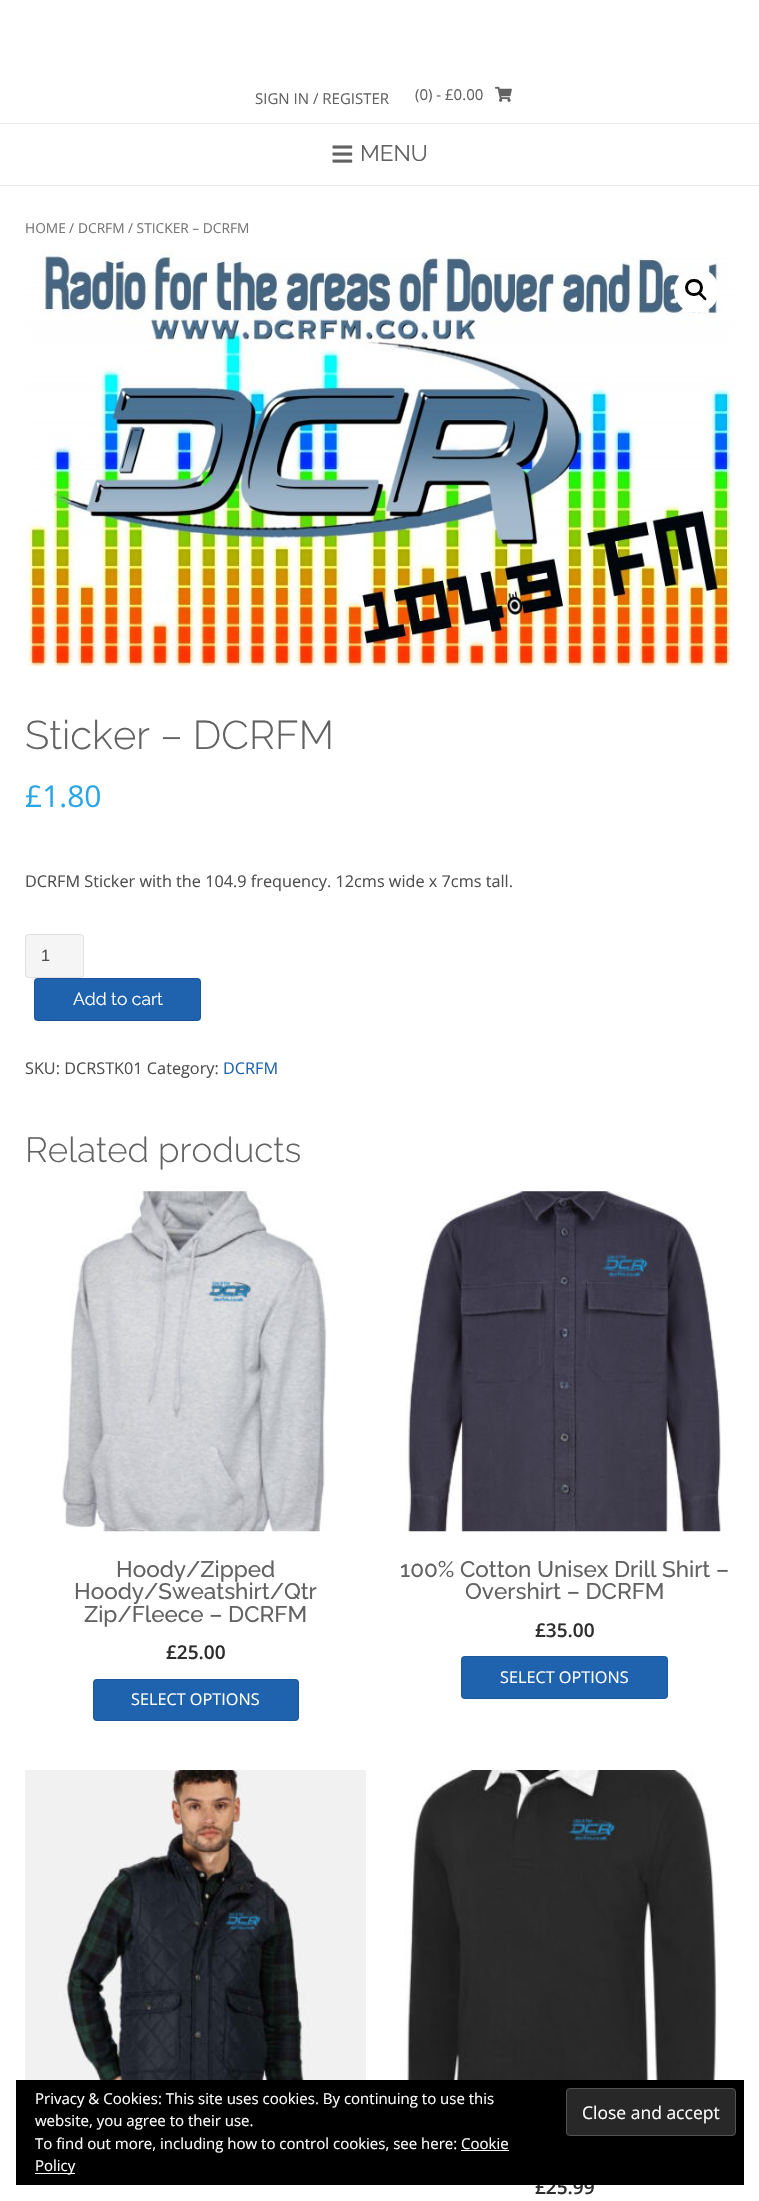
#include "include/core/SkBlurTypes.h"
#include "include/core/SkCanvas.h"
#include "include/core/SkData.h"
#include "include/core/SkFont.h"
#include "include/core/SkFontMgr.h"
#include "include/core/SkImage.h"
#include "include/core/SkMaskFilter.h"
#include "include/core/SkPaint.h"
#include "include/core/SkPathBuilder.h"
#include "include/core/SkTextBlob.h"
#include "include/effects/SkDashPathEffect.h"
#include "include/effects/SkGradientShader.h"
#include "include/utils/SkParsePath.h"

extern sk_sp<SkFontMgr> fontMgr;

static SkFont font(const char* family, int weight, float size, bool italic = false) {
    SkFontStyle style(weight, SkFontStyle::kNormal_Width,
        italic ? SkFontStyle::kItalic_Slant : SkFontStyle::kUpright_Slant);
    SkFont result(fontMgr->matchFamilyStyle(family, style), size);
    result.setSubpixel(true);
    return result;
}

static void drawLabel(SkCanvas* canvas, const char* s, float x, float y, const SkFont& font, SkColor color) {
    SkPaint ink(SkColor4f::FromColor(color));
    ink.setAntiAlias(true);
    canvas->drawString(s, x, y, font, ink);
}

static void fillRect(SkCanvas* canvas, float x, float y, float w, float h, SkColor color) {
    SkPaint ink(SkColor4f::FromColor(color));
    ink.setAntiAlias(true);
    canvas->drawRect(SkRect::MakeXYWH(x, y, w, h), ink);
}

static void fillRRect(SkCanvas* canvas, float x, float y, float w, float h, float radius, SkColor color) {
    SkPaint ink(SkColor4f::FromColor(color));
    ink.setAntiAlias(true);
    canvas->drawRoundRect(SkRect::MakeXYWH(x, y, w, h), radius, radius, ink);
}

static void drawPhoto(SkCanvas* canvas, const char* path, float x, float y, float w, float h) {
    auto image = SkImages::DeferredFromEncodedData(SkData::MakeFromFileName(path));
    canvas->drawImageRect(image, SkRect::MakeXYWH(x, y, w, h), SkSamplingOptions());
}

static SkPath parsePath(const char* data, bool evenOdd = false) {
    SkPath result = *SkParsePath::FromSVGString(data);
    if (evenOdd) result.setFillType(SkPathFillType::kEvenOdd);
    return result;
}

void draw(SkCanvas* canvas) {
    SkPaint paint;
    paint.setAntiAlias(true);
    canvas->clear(0xFFFFFFFF);
    fillRect(canvas, 0, 185, 759, 1, 0xFFEBEBEB);
    SkFont font1 = font("Open Sans", 400, 15);
    drawLabel(canvas, "SIGN IN / REGISTER", 255, 104, font1, 0xFF626262);
    drawLabel(canvas, "(0) - £0.00", 415, 100, font1, 0xFF626262);
    drawPhoto(canvas, "assets/img1.png", 495, 86, 17, 16);
    fillRect(canvas, 0, 123, 759, 1, 0xFFEBEBEB);
    drawPhoto(canvas, "assets/img2.png", 332, 145, 21, 18);
    SkFont font2 = font("Raleway", 400, 22.5f);
    drawLabel(canvas, "MENU", 360, 161, font2, 0xFF626262);
    SkFont font3 = font("Open Sans", 400, 13.75f);
    drawLabel(canvas, "HOME", 25, 233, font3, 0xFF767676);
    drawLabel(canvas, "/", 69, 233, font3, 0xFF767676);
    drawLabel(canvas, "DCRFM", 78, 233, font3, 0xFF767676);
    drawLabel(canvas, "/ STICKER – DCRFM", 128, 233, font3, 0xFF767676);
    drawPhoto(canvas, "assets/img3.png", 25, 251, 710, 416);
    paint.setColor(0xFFFFFFFF);
    canvas->drawCircle(696.5f, 290.5f, 22.5f, paint);
    paint.setStroke(true);
    paint.setStrokeWidth(3);
    paint.setColor(0xFF000000);
    canvas->drawRoundRect(SkRect::MakeXYWH(686.5f, 280.5f, 15, 14), 7, 7, paint);
    paint.setStroke(false);
    canvas->drawPath(parsePath("M699 292.5C700.5 291.5 702.5 294.5 703.5 295.5C704 296 707.5 298.5 706 300C704.5 301 702.5 298 701.5 297C701 296.5 697.5 294 699 292.5Z"), paint);
    SkFont font4 = font("Raleway", 300, 40);
    drawLabel(canvas, "Sticker – DCRFM", 25, 749, font4, 0xFF626262);
    SkFont font5 = font("Open Sans", 400, 30);
    drawLabel(canvas, "£1.80", 25, 807, font5, 0xFF29A6E5);
    SkFont font6 = font("Open Sans", 400, 16.25f);
    drawLabel(canvas, "DCRFM Sticker with the 104.9 frequency. 12cms wide x 7cms tall.", 25, 887, font6, 0xFF4F4F4F);
    fillRRect(canvas, 25, 934, 59, 44, 4, 0xFFF5F5F5);
    paint.setStroke(true);
    paint.setStrokeWidth(1);
    paint.setColor(0x14000000);
    canvas->drawRoundRect(SkRect::MakeXYWH(25.5f, 934.5f, 58, 43), 3.5f, 3.5f, paint);
    SkFont font7 = font("Liberation Sans", 400, 16.25f);
    drawLabel(canvas, "1", 41, 961, font7, 0xFF4F4F4F);
    fillRRect(canvas, 34, 978, 167, 43, 4, 0xFF1F63AE);
    paint.setColor(0x24000000);
    canvas->drawRoundRect(SkRect::MakeXYWH(34.5f, 978.5f, 166, 42), 3.5f, 3.5f, paint);
    SkFont font8 = font("Raleway", 400, 17.5f);
    drawLabel(canvas, "Add to cart", 73, 1005, font8, 0xFFFFFFFF);
    drawLabel(canvas, "SKU: DCRSTK01 Category:", 25, 1074, font6, 0xFF4F4F4F);
    drawLabel(canvas, "DCRFM", 223, 1074, font6, 0xFF1F63AE);
    SkFont font9 = font("Raleway", 300, 35);
    drawLabel(canvas, "Related products", 25, 1162, font9, 0xFF626262);
    drawPhoto(canvas, "assets/img4.png", 62, 1191, 265, 341);
    SkFont font10 = font("Raleway", 500, 22.5f);
    drawLabel(canvas, "Hoody/Zipped", 116, 1577, font10, 0xFF626262);
    drawLabel(canvas, "Hoody/Sweatshirt/Qtr", 74, 1599, font10, 0xFF626262);
    drawLabel(canvas, "Zip/Fleece – DCRFM", 84, 1622, font10, 0xFF626262);
    SkFont font11 = font("Open Sans", 600, 19);
    drawLabel(canvas, "£25.00", 166, 1659, font11, 0xFF2D2D2D);
    fillRRect(canvas, 93, 1679, 206, 42, 4, 0xFF1F63AE);
    paint.setColor(0x1A000000);
    canvas->drawRoundRect(SkRect::MakeXYWH(93.5f, 1679.5f, 205, 41), 3.5f, 3.5f, paint);
    drawLabel(canvas, "SELECT OPTIONS", 131, 1705, font6, 0xFFFFFFFF);
    drawPhoto(canvas, "assets/img5.png", 404, 1191, 317, 341);
    drawLabel(canvas, "100% Cotton Unisex Drill Shirt –", 400, 1577, font10, 0xFF626262);
    drawLabel(canvas, "Overshirt – DCRFM", 465, 1599, font10, 0xFF626262);
    drawLabel(canvas, "£35.00", 535, 1637, font11, 0xFF2D2D2D);
    fillRRect(canvas, 461, 1656, 207, 43, 4, 0xFF1F63AE);
    canvas->drawRoundRect(SkRect::MakeXYWH(461.5f, 1656.5f, 206, 42), 3.5f, 3.5f, paint);
    drawLabel(canvas, "SELECT OPTIONS", 500, 1683, font6, 0xFFFFFFFF);
    drawPhoto(canvas, "assets/img6.png", 25, 1770, 341, 310);
    drawPhoto(canvas, "assets/img7.png", 404, 1770, 316, 310);
    drawLabel(canvas, "£25.99", 535, 2194, font11, 0xFF2D2D2D);
    fillRect(canvas, 16, 2080, 728, 105, 0xFF000000);
    drawLabel(canvas, "Privacy & Cookies: This site uses cookies. By continuing to use this", 35, 2104, font1, 0xFFFFFFFF);
    drawLabel(canvas, "website, you agree to their use.", 35, 2126, font1, 0xFFFFFFFF);
    paint.setStroke(false);
    paint.setColor(0xFF282828);
    canvas->drawRoundRect(SkRect::MakeXYWH(566.5f, 2088.5f, 169, 47), 3.5f, 3.5f, paint);
    paint.setStroke(true);
    paint.setColor(0xFF535353);
    canvas->drawRoundRect(SkRect::MakeXYWH(566.5f, 2088.5f, 169, 47), 3.5f, 3.5f, paint);
    SkFont font12 = font("Open Sans", 400, 17.5f);
    drawLabel(canvas, "Close and accept", 582, 2119, font12, 0xFFFFFFFF);
    drawLabel(canvas, "To find out more, including how to control cookies, see here: Cookie", 35, 2149, font1, 0xFFFFFFFF);
    fillRect(canvas, 35, 2173, 40, 1, 0xFFFFFFFF);
    drawLabel(canvas, "Policy", 35, 2171, font1, 0xFFFFFFFF);
    fillRect(canvas, 461, 2150, 48, 1, 0xFFFFFFFF);
}
